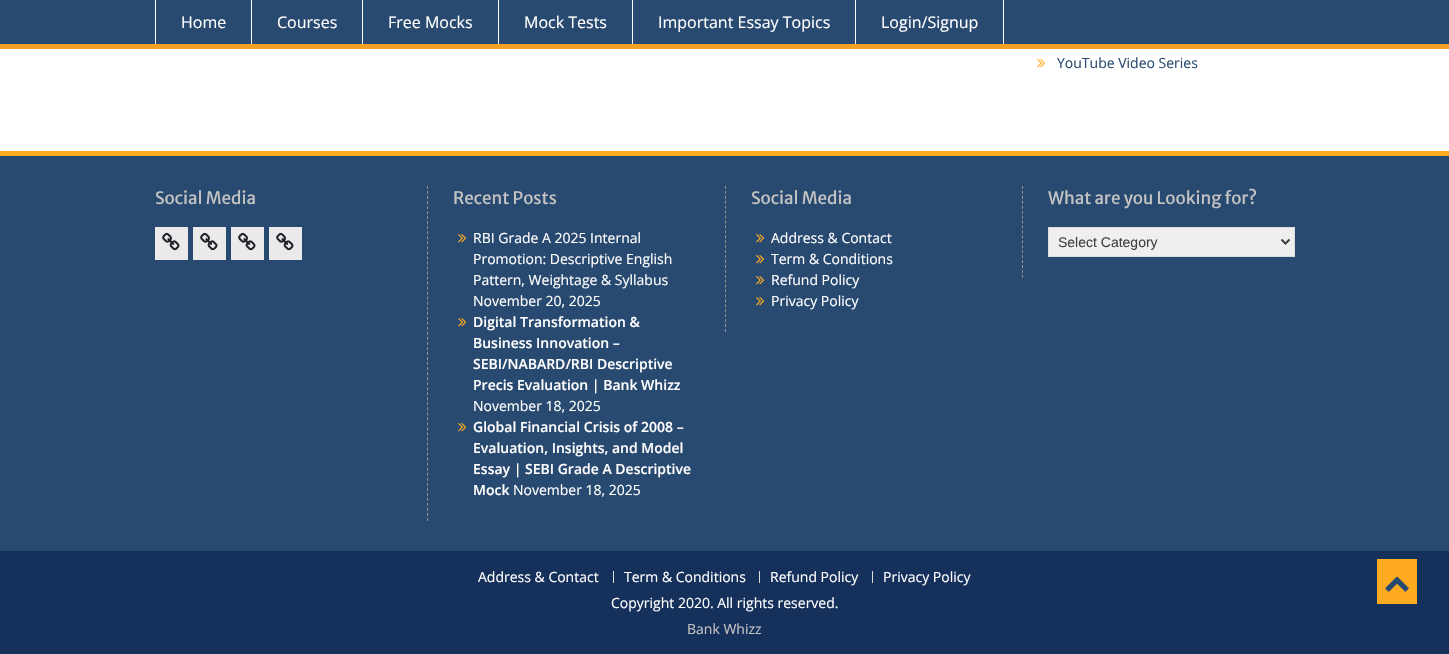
#include "include/core/SkBlurTypes.h"
#include "include/core/SkCanvas.h"
#include "include/core/SkData.h"
#include "include/core/SkFont.h"
#include "include/core/SkFontMgr.h"
#include "include/core/SkImage.h"
#include "include/core/SkMaskFilter.h"
#include "include/core/SkPaint.h"
#include "include/core/SkPathBuilder.h"
#include "include/core/SkTextBlob.h"
#include "include/effects/SkDashPathEffect.h"
#include "include/effects/SkGradientShader.h"
#include "include/utils/SkParsePath.h"

extern sk_sp<SkFontMgr> fontMgr;

static SkFont font(const char* family, int weight, float size, bool italic = false) {
    SkFontStyle style(weight, SkFontStyle::kNormal_Width,
        italic ? SkFontStyle::kItalic_Slant : SkFontStyle::kUpright_Slant);
    SkFont result(fontMgr->matchFamilyStyle(family, style), size);
    result.setSubpixel(true);
    return result;
}

static void drawLabel(SkCanvas* canvas, const char* s, float x, float y, const SkFont& font, SkColor color) {
    SkPaint ink(SkColor4f::FromColor(color));
    ink.setAntiAlias(true);
    canvas->drawString(s, x, y, font, ink);
}

static void fillRect(SkCanvas* canvas, float x, float y, float w, float h, SkColor color) {
    SkPaint ink(SkColor4f::FromColor(color));
    ink.setAntiAlias(true);
    canvas->drawRect(SkRect::MakeXYWH(x, y, w, h), ink);
}

static void drawPhoto(SkCanvas* canvas, const char* path, float x, float y, float w, float h) {
    auto image = SkImages::DeferredFromEncodedData(SkData::MakeFromFileName(path));
    canvas->drawImageRect(image, SkRect::MakeXYWH(x, y, w, h), SkSamplingOptions());
}

static SkPath parsePath(const char* data, bool evenOdd = false) {
    SkPath result = *SkParsePath::FromSVGString(data);
    if (evenOdd) result.setFillType(SkPathFillType::kEvenOdd);
    return result;
}

void draw(SkCanvas* canvas) {
    SkPaint paint;
    paint.setAntiAlias(true);
    canvas->clear(0xFFFFFFFF);
    fillRect(canvas, 0, 0, 1449, 44, 0xFF294A70);
    fillRect(canvas, 0, 44, 1449, 5, 0xFFF4A024);
    fillRect(canvas, 251, 0, 1, 44, 0xFFFFFFFF);
    fillRect(canvas, 155, 0, 1, 44, 0xFFFFFFFF);
    SkFont font1 = font("Open Sans", 400, 16);
    drawLabel(canvas, "Home", 181, 28, font1, 0xFFFFFFFF);
    fillRect(canvas, 362, 0, 1, 44, 0xFFFFFFFF);
    drawLabel(canvas, "Courses", 277, 28, font1, 0xFFFFFFFF);
    fillRect(canvas, 498, 0, 1, 44, 0xFFFFFFFF);
    drawLabel(canvas, "Free Mocks", 388, 28, font1, 0xFFFFFFFF);
    fillRect(canvas, 632, 0, 1, 44, 0xFFFFFFFF);
    drawLabel(canvas, "Mock Tests", 524, 28, font1, 0xFFFFFFFF);
    fillRect(canvas, 855, 0, 1, 44, 0xFFFFFFFF);
    drawLabel(canvas, "Important Essay Topics", 658, 28, font1, 0xFFFFFFFF);
    fillRect(canvas, 1003, 0, 1, 44, 0xFFFFFFFF);
    drawLabel(canvas, "Login/Signup", 881, 28, font1, 0xFFFFFFFF);
    drawPhoto(canvas, "assets/img1.png", 1037, 59, 9, 9);
    SkFont font2 = font("Open Sans", 400, 14);
    drawLabel(canvas, "YouTube Video Series", 1057, 68, font2, 0xFF294A70);
    fillRect(canvas, 0, 156, 1449, 395, 0xFF294A70);
    fillRect(canvas, 0, 151, 1449, 5, 0xFFFFAB1F);
    SkFont font3 = font("Merriweather Sans", 400, 17);
    drawLabel(canvas, "Social Media", 155, 204, font3, 0xFFC2C2C2);
    fillRect(canvas, 155, 227, 33, 33, 0xFFEAEAEA);
    drawPhoto(canvas, "assets/img2.png", 162, 232, 18, 19);
    fillRect(canvas, 193, 227, 33, 33, 0xFFEAEAEA);
    drawPhoto(canvas, "assets/img2.png", 200, 232, 18, 19);
    fillRect(canvas, 231, 227, 33, 33, 0xFFEAEAEA);
    drawPhoto(canvas, "assets/img2.png", 238, 232, 18, 19);
    fillRect(canvas, 269, 227, 33, 33, 0xFFEAEAEA);
    drawPhoto(canvas, "assets/img2.png", 276, 232, 18, 19);
    paint.setStroke(true);
    paint.setStrokeWidth(1);
    paint.setColor(0xFF939393);
    paint.setPathEffect(SkDashPathEffect::Make({{3, 2.03f}}, 0));
    canvas->drawPath(parsePath("M427.5 186V521"), paint);
    paint.setPathEffect(nullptr);
    drawLabel(canvas, "Recent Posts", 453, 204, font3, 0xFFC2C2C2);
    drawPhoto(canvas, "assets/img3.png", 458, 234, 9, 9);
    drawLabel(canvas, "RBI Grade A 2025 Internal", 473, 243, font2, 0xFFFFFFFF);
    drawLabel(canvas, "Promotion: Descriptive English", 473, 264, font2, 0xFFFFFFFF);
    drawLabel(canvas, "Pattern, Weightage & Syllabus", 473, 285, font2, 0xFFFFFFFF);
    drawLabel(canvas, "November 20, 2025", 473, 306, font2, 0xFFFFFFFF);
    drawPhoto(canvas, "assets/img3.png", 458, 318, 9, 9);
    SkFont font4 = font("Open Sans", 600, 14);
    drawLabel(canvas, "Digital Transformation &", 473, 327, font4, 0xFFFFFFFF);
    drawLabel(canvas, "Business Innovation –", 473, 348, font4, 0xFFFFFFFF);
    drawLabel(canvas, "SEBI/NABARD/RBI Descriptive", 473, 369, font4, 0xFFFFFFFF);
    drawLabel(canvas, "Precis Evaluation | Bank Whizz", 473, 390, font4, 0xFFFFFFFF);
    drawLabel(canvas, "November 18, 2025", 473, 411, font2, 0xFFFFFFFF);
    drawPhoto(canvas, "assets/img3.png", 458, 423, 9, 9);
    drawLabel(canvas, "Global Financial Crisis of 2008 –", 473, 432, font4, 0xFFFFFFFF);
    drawLabel(canvas, "Evaluation, Insights, and Model", 473, 453, font4, 0xFFFFFFFF);
    drawLabel(canvas, "Essay | SEBI Grade A Descriptive", 473, 474, font4, 0xFFFFFFFF);
    drawLabel(canvas, "Mock", 473, 495, font4, 0xFFFFFFFF);
    drawLabel(canvas, "November 18, 2025", 513, 495, font2, 0xFFFFFFFF);
    paint.setPathEffect(SkDashPathEffect::Make({{3, 1.93f}}, 0));
    canvas->drawPath(parsePath("M725.5 186V332"), paint);
    paint.setPathEffect(nullptr);
    drawLabel(canvas, "Social Media", 751, 204, font3, 0xFFC2C2C2);
    drawPhoto(canvas, "assets/img3.png", 756, 234, 9, 9);
    drawLabel(canvas, "Address & Contact", 771, 243, font2, 0xFFFFFFFF);
    drawPhoto(canvas, "assets/img3.png", 756, 255, 9, 9);
    drawLabel(canvas, "Term & Conditions", 771, 264, font2, 0xFFFFFFFF);
    drawPhoto(canvas, "assets/img3.png", 756, 276, 9, 9);
    drawLabel(canvas, "Refund Policy", 771, 285, font2, 0xFFFFFFFF);
    drawPhoto(canvas, "assets/img3.png", 756, 297, 9, 9);
    drawLabel(canvas, "Privacy Policy", 771, 306, font2, 0xFFFFFFFF);
    paint.setPathEffect(SkDashPathEffect::Make({{3, 1.94f}}, 0));
    canvas->drawPath(parsePath("M1022.5 186V278"), paint);
    paint.setPathEffect(nullptr);
    drawLabel(canvas, "What are you Looking for?", 1048, 204, font3, 0xFFC2C2C2);
    paint.setStroke(false);
    paint.setColor(0xFFEFEFEF);
    canvas->drawRect(SkRect::MakeXYWH(1048.5f, 227.5f, 246, 29), paint);
    paint.setStroke(true);
    paint.setColor(0xFFDDDDDD);
    canvas->drawRect(SkRect::MakeXYWH(1048.5f, 227.5f, 246, 29), paint);
    paint.setStrokeWidth(2);
    paint.setColor(0xFF404040);
    canvas->drawPath(parsePath("M1281.5 239.5L1285.5 243.5L1289.5 239.5"), paint);
    SkFont font5 = font("Liberation Sans", 400, 14);
    drawLabel(canvas, "Select Category", 1058, 247, font5, 0xFF404040);
    fillRect(canvas, 0, 551, 1449, 103, 0xFF15305B);
    drawLabel(canvas, "Address & Contact", 478, 582, font2, 0xFFFFFFFF);
    fillRect(canvas, 613, 571, 1, 12, 0xFFDDDDDD);
    drawLabel(canvas, "Term & Conditions", 624, 582, font2, 0xFFFFFFFF);
    fillRect(canvas, 759, 571, 1, 12, 0xFFDDDDDD);
    drawLabel(canvas, "Refund Policy", 770, 582, font2, 0xFFFFFFFF);
    fillRect(canvas, 872, 571, 1, 12, 0xFFDDDDDD);
    drawLabel(canvas, "Privacy Policy", 883, 582, font2, 0xFFFFFFFF);
    drawLabel(canvas, "Copyright 2020. All rights reserved.", 611, 608, font2, 0xFFFFFFFF);
    drawLabel(canvas, "Bank Whizz", 687, 634, font2, 0xFFC2C2C2);
    fillRect(canvas, 1377, 559, 40, 45, 0xFFFFAB1F);
    drawPhoto(canvas, "assets/img4.png", 1385, 576, 24, 16);
}
